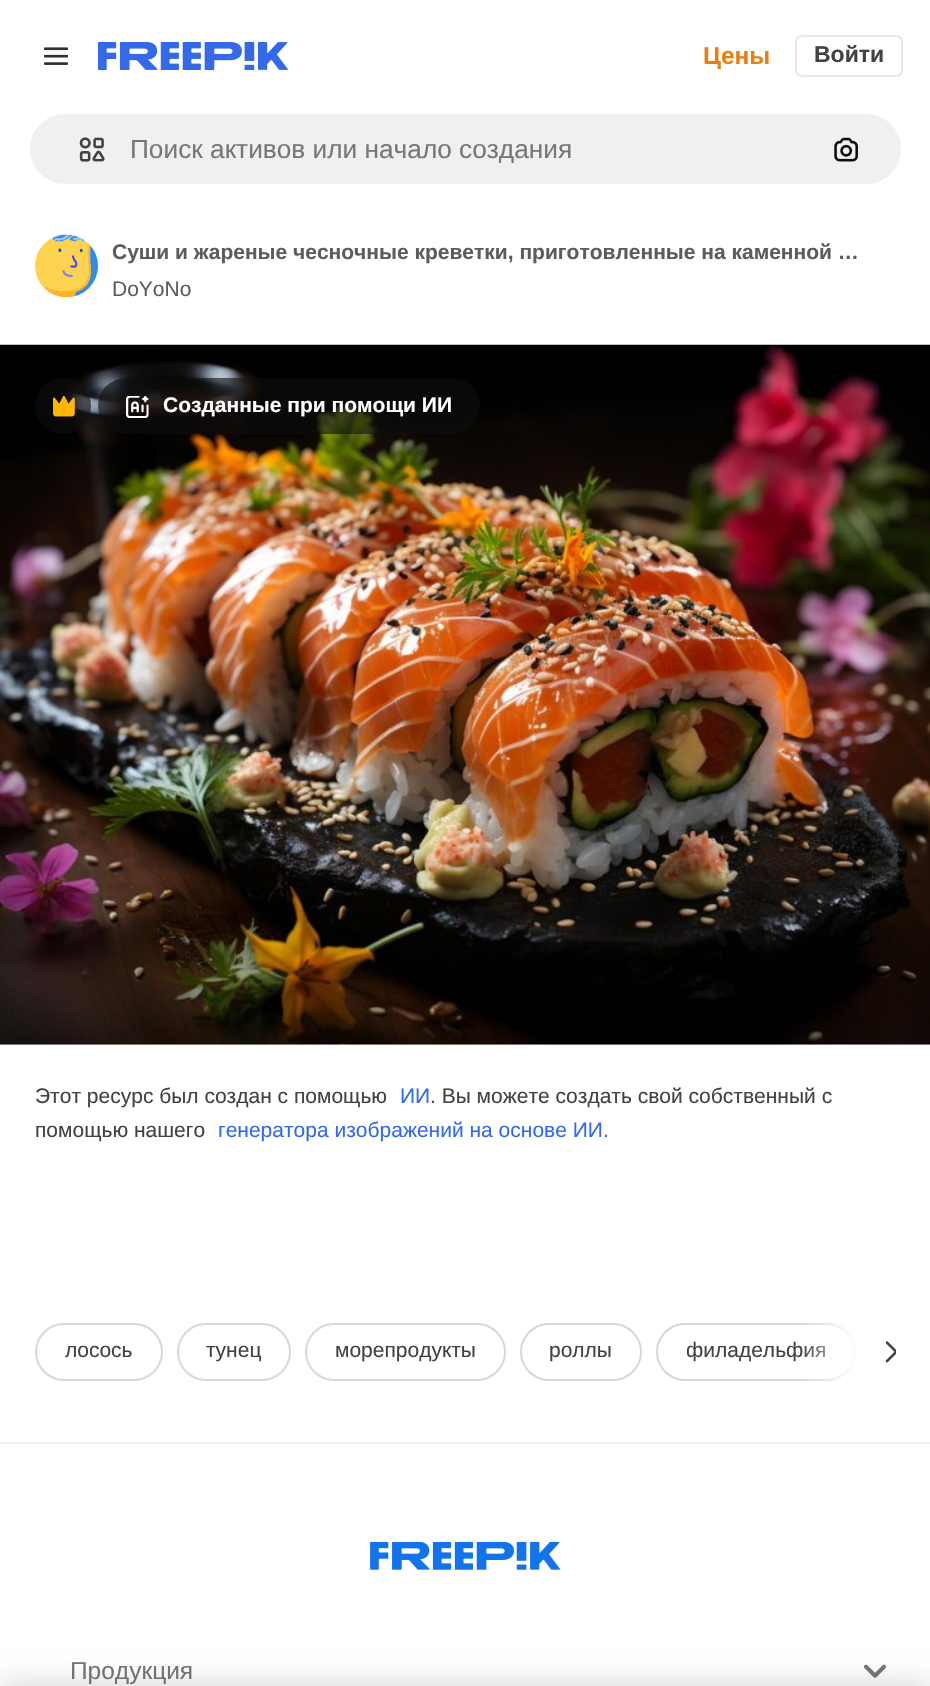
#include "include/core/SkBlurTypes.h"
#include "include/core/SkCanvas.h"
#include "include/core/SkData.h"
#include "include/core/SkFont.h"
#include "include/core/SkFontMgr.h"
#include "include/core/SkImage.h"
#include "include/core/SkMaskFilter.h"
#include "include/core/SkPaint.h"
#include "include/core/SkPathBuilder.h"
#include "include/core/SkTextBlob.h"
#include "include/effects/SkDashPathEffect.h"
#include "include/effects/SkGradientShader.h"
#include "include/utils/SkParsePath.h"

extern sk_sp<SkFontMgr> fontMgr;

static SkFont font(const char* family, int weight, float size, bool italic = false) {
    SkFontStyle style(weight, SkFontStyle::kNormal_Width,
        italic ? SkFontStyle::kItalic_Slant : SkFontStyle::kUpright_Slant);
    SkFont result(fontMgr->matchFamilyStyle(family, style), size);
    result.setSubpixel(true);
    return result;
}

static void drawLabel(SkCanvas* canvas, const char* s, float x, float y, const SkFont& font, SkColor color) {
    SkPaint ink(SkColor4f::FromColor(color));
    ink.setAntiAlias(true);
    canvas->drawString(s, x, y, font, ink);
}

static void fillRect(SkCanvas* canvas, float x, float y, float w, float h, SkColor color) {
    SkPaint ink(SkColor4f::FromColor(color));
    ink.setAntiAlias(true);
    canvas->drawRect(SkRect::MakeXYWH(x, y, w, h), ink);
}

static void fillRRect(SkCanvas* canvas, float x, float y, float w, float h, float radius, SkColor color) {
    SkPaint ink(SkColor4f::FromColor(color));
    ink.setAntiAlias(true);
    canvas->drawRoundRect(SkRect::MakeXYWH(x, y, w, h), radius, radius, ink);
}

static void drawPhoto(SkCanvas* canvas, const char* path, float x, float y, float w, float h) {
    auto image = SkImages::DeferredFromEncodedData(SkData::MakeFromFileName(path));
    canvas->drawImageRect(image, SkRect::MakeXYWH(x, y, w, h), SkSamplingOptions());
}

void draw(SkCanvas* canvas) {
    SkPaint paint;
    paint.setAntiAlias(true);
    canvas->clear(0xFFFFFFFF);
    drawPhoto(canvas, "assets/img1.png", 44, 47, 24, 18);
    drawPhoto(canvas, "assets/img2.png", 98, 42, 190, 28);
    SkFont font1 = font("Liberation Sans", 700, 24.5f);
    drawLabel(canvas, "Цены", 703, 64, font1, 0xFFEA7E11);
    paint.setStroke(true);
    paint.setStrokeWidth(2);
    paint.setColor(0xFFE7E7E7);
    canvas->drawRoundRect(SkRect::MakeXYWH(796, 36, 106, 40), 6, 6, paint);
    SkFont font2 = font("Liberation Sans", 700, 23);
    drawLabel(canvas, "Войти", 814, 62, font2, 0xFF424242);
    paint.setStroke(false);
    paint.setColor(0xFFF0F0F0);
    canvas->drawRoundRect(SkRect::MakeXYWH(29, 113, 873, 72), 36, 36, paint);
    paint.setStroke(true);
    paint.setColor(0xFFFFFFFF);
    canvas->drawRoundRect(SkRect::MakeXYWH(29, 113, 873, 72), 36, 36, paint);
    drawPhoto(canvas, "assets/img3.png", 79, 137, 26, 25);
    canvas->save();
    canvas->clipRect(SkRect::MakeXYWH(130, 133, 684, 30));
    SkFont font3 = font("Liberation Sans", 400, 26.25f);
    drawLabel(canvas, "Поиск активов или начало создания", 130, 158, font3, 0xFF777777);
    canvas->restore();
    drawPhoto(canvas, "assets/img4.png", 834, 137, 24, 25);
    drawPhoto(canvas, "assets/img5.png", 35, 234, 63, 64);
    SkFont font4 = font("Liberation Sans", 700, 21);
    drawLabel(canvas, "Суши и жареные чесночные креветки, приготовленные на каменной …", 112, 259, font4, 0xFF5C5C5C);
    SkFont font5 = font("Liberation Sans", 400, 21);
    drawLabel(canvas, "DoYoNo", 112, 296, font5, 0xFF5C5C5C);
    drawPhoto(canvas, "assets/img6.png", 0, 344, 930, 701);
    paint.setStroke(false);
    paint.setColor(0x990D0D0D);
    canvas->drawCircle(63, 406, 28, paint);
    drawPhoto(canvas, "assets/img7.png", 53, 396, 22, 21);
    fillRRect(canvas, 98, 378, 382, 56, 28, 0x990D0D0D);
    drawPhoto(canvas, "assets/img8.png", 126, 396, 23, 22);
    drawLabel(canvas, "Созданные при помощи ИИ", 163, 412, font4, 0xFFFFFFFF);
    drawLabel(canvas, "Этот ресурс был создан с помощью", 35, 1103, font5, 0xFF424242);
    drawLabel(canvas, "ИИ", 400, 1103, font5, 0xFF346AEA);
    drawLabel(canvas, ". Вы можете создать свой собственный с", 430, 1103, font5, 0xFF424242);
    drawLabel(canvas, "помощью нашего", 35, 1137, font5, 0xFF424242);
    drawLabel(canvas, "генератора изображений на основе ИИ.", 218, 1137, font5, 0xFF346AEA);
    paint.setStroke(true);
    paint.setColor(0xFFD8D8D8);
    canvas->drawRoundRect(SkRect::MakeXYWH(36, 1324, 126, 56), 28, 28, paint);
    drawLabel(canvas, "лосось", 65, 1357, font5, 0xFF424242);
    canvas->drawRoundRect(SkRect::MakeXYWH(178, 1324, 112, 56), 28, 28, paint);
    drawLabel(canvas, "тунец", 206, 1357, font5, 0xFF424242);
    canvas->drawRoundRect(SkRect::MakeXYWH(306, 1324, 199, 56), 28, 28, paint);
    drawLabel(canvas, "морепродукты", 335, 1357, font5, 0xFF424242);
    canvas->drawRoundRect(SkRect::MakeXYWH(521, 1324, 120, 56), 28, 28, paint);
    drawLabel(canvas, "роллы", 549, 1357, font5, 0xFF424242);
    canvas->drawRoundRect(SkRect::MakeXYWH(657, 1324, 198, 56), 28, 28, paint);
    drawLabel(canvas, "филадельфия", 686, 1357, font5, 0xFF424242);
    paint.setStroke(false);
    {
        const SkColor colors[] = {0xFFFFFFFF, 0x00FFFFFF};
        const float stops[] = {0, 1};
        const SkPoint ends[] = {{861, 1352}, {800, 1352}};
        paint.setShader(SkGradientShader::MakeLinear(ends, colors, stops, 2, SkTileMode::kClamp));
        paint.setAlpha(255);
    }
    canvas->drawRect(SkRect::MakeXYWH(801, 1323, 55, 58), paint);
    drawPhoto(canvas, "assets/img9.png", 885, 1341, 11, 22);
    fillRect(canvas, 0, 1442, 930, 2, 0xFFF0F0F0);
    drawPhoto(canvas, "assets/img10.png", 370, 1542, 191, 28);
    SkFont font6 = font("Liberation Sans", 400, 24.5f);
    drawLabel(canvas, "Продукция", 70, 1679, font6, 0xFF777777);
    drawPhoto(canvas, "assets/img11.png", 863, 1664, 23, 14);
    paint.setShader(nullptr);
    paint.setColor(0x33000000);
    paint.setMaskFilter(SkMaskFilter::MakeBlur(kNormal_SkBlurStyle, 16));
    canvas->drawRect(SkRect::MakeXYWH(0, 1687, 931, 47), paint);
    paint.setMaskFilter(nullptr);
}
